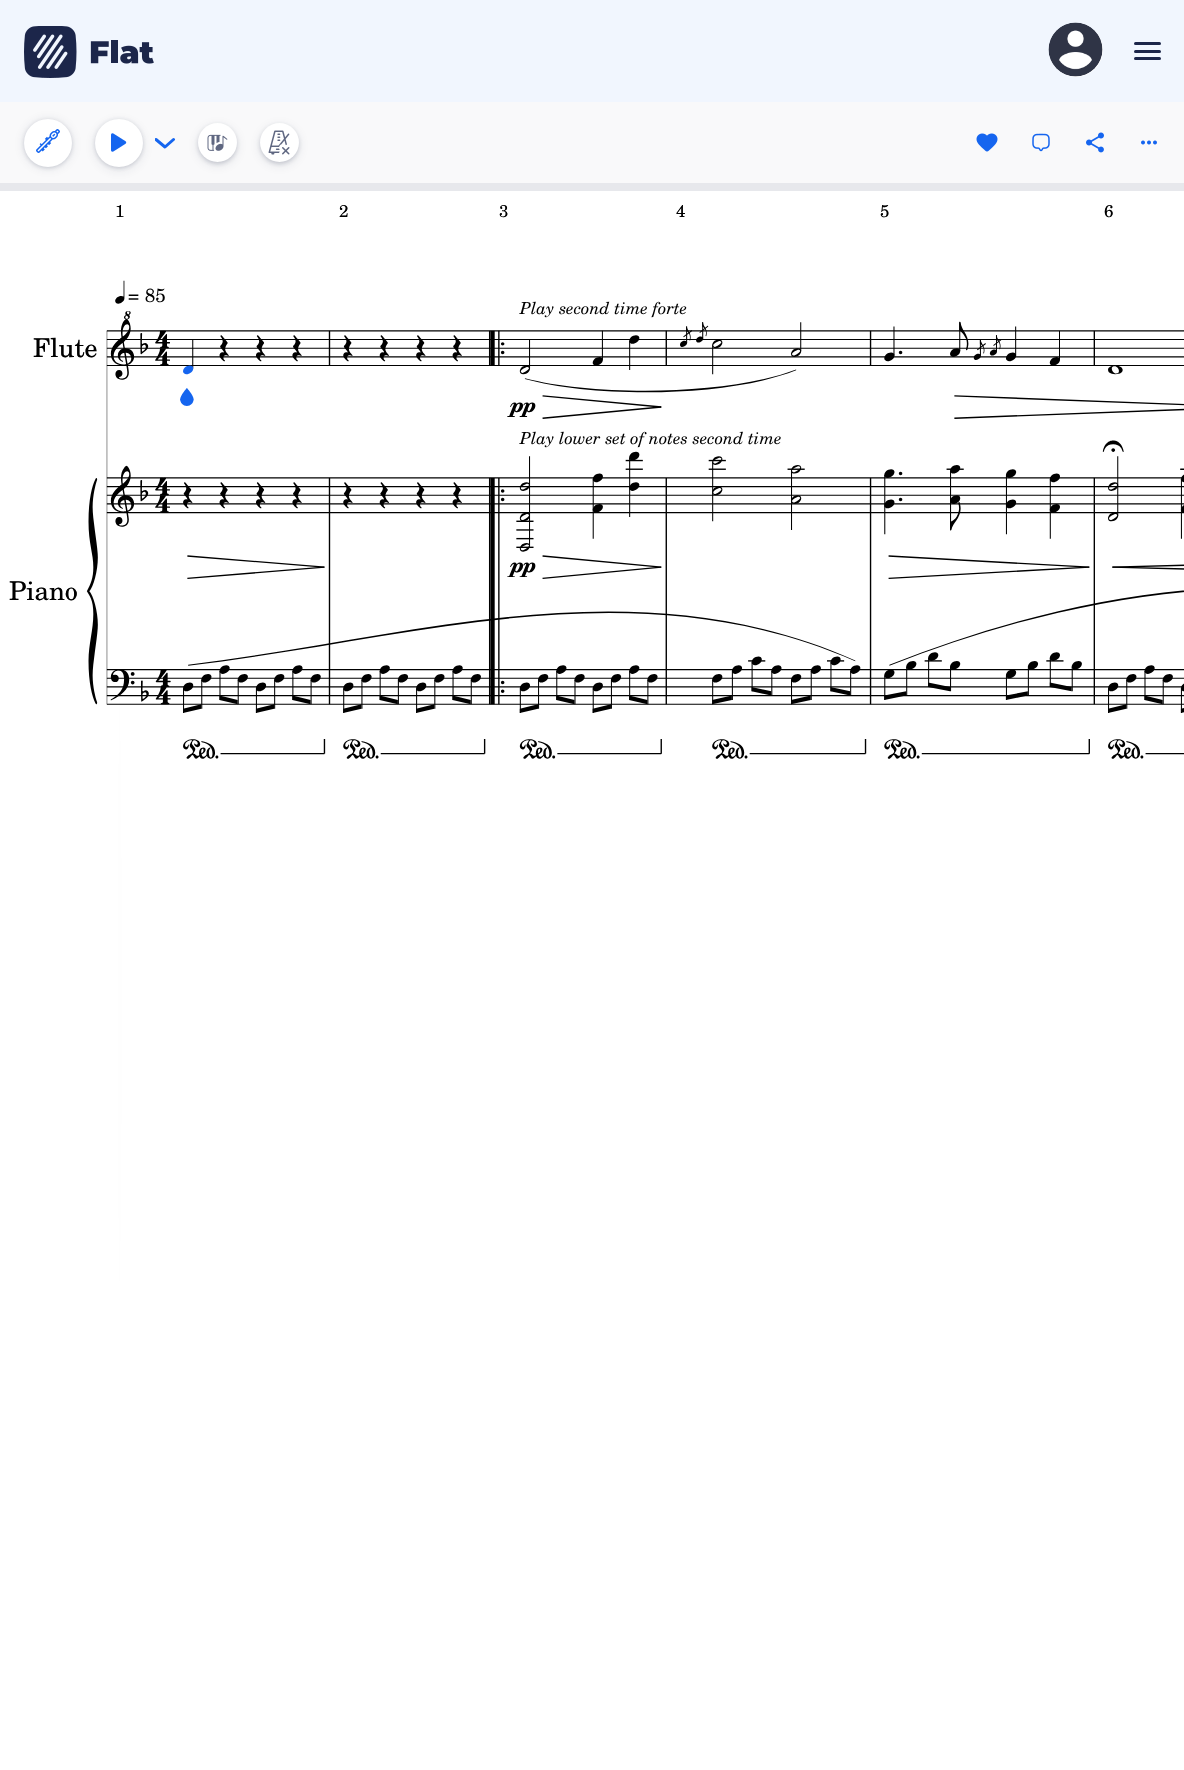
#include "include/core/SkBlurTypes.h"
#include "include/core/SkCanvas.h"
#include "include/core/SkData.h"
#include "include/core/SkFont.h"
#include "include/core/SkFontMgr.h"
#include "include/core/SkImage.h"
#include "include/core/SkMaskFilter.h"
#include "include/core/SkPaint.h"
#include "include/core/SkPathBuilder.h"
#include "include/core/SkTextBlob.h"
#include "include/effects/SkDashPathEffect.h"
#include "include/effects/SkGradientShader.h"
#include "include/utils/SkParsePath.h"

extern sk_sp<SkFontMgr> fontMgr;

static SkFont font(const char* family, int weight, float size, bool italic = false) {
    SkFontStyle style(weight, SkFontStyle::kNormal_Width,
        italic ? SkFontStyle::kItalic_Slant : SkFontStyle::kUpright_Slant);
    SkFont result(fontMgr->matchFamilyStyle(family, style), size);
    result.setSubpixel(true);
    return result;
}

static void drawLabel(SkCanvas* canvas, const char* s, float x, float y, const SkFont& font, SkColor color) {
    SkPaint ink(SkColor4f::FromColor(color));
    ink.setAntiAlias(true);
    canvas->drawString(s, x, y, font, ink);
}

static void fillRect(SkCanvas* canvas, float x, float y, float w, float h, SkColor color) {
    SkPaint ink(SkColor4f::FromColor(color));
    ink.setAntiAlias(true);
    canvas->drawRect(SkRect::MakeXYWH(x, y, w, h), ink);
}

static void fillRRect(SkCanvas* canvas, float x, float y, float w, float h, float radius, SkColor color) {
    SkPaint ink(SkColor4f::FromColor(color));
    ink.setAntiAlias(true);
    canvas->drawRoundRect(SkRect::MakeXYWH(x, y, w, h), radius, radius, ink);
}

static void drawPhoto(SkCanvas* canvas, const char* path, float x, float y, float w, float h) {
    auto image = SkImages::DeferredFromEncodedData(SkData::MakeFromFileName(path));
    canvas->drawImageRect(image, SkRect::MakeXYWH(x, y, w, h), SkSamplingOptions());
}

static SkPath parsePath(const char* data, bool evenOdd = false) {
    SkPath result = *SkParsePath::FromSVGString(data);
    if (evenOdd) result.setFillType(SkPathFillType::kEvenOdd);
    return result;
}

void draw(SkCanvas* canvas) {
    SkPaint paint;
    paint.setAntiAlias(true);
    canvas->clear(0xFFFFFFFF);
    fillRect(canvas, 0, 0, 1184, 102, 0xFFF1F6FE);
    drawPhoto(canvas, "assets/img1.png", 24, 26, 130, 52);
    paint.setColor(0xFFFFFFFF);
    canvas->drawCircle(1076, 50, 27, paint);
    drawPhoto(canvas, "assets/img2.png", 1048, 22, 55, 55);
    fillRRect(canvas, 1134, 42, 27, 3, 1.5f, 0xFF1C264A);
    fillRRect(canvas, 1134, 50, 27, 3, 1.5f, 0xFF1C264A);
    fillRRect(canvas, 1134, 57, 27, 3, 1.5f, 0xFF1C264A);
    fillRect(canvas, 0, 102, 1184, 81, 0xFFF9F9FA);
    paint.setColor(0x1A28304F);
    paint.setMaskFilter(SkMaskFilter::MakeBlur(kNormal_SkBlurStyle, 6));
    canvas->drawRoundRect(SkRect::MakeXYWH(95, 122, 48, 48), 24, 24, paint);
    paint.setMaskFilter(nullptr);
    paint.setMaskFilter(SkMaskFilter::MakeBlur(kNormal_SkBlurStyle, 6));
    canvas->drawRoundRect(SkRect::MakeXYWH(198, 126, 39, 39), 19.5f, 19.5f, paint);
    paint.setMaskFilter(nullptr);
    paint.setMaskFilter(SkMaskFilter::MakeBlur(kNormal_SkBlurStyle, 6));
    canvas->drawRoundRect(SkRect::MakeXYWH(260, 126, 39, 39), 19.5f, 19.5f, paint);
    paint.setMaskFilter(nullptr);
    fillRect(canvas, 0, 183, 1184, 8, 0xFFE7E8EC);
    paint.setMaskFilter(SkMaskFilter::MakeBlur(kNormal_SkBlurStyle, 6));
    canvas->drawRoundRect(SkRect::MakeXYWH(24, 120, 48, 48), 24, 24, paint);
    paint.setMaskFilter(nullptr);
    paint.setColor(0x3328304F);
    paint.setMaskFilter(SkMaskFilter::MakeBlur(kNormal_SkBlurStyle, 2));
    canvas->drawRoundRect(SkRect::MakeXYWH(24, 120, 48, 48), 24, 24, paint);
    paint.setMaskFilter(nullptr);
    paint.setColor(0xFFFFFFFF);
    canvas->drawCircle(48, 143, 24, paint);
    drawPhoto(canvas, "assets/img3.png", 36, 129, 24, 24);
    paint.setColor(0x3328304F);
    paint.setMaskFilter(SkMaskFilter::MakeBlur(kNormal_SkBlurStyle, 2));
    canvas->drawRoundRect(SkRect::MakeXYWH(95, 120, 48, 48), 24, 24, paint);
    paint.setMaskFilter(nullptr);
    paint.setColor(0xFFFFFFFF);
    canvas->drawCircle(119, 143, 24, paint);
    drawPhoto(canvas, "assets/img4.png", 111, 133, 16, 19);
    canvas->save();
    canvas->clipRect(SkRect::MakeXYWH(155, 137, 21, 13));
    paint.setStroke(true);
    paint.setStrokeWidth(3);
    paint.setStrokeCap(SkPaint::kRound_Cap);
    paint.setStrokeJoin(SkPaint::kRound_Join);
    paint.setColor(0xFF1565EF);
    canvas->drawPath(parsePath("M156 139.5L165 147L173.5 139.5"), paint);
    canvas->restore();
    paint.setStroke(false);
    paint.setColor(0x3328304F);
    paint.setMaskFilter(SkMaskFilter::MakeBlur(kNormal_SkBlurStyle, 2));
    canvas->drawRoundRect(SkRect::MakeXYWH(198, 125, 39, 39), 19.5f, 19.5f, paint);
    paint.setMaskFilter(nullptr);
    paint.setColor(0xFFFFFFFF);
    canvas->drawCircle(217.5f, 142.5f, 19.5f, paint);
    drawPhoto(canvas, "assets/img5.png", 207, 134, 21, 17);
    paint.setColor(0x3328304F);
    paint.setMaskFilter(SkMaskFilter::MakeBlur(kNormal_SkBlurStyle, 2));
    canvas->drawRoundRect(SkRect::MakeXYWH(260, 125, 39, 39), 19.5f, 19.5f, paint);
    paint.setMaskFilter(nullptr);
    paint.setColor(0xFFFFFFFF);
    canvas->drawCircle(279.5f, 142.5f, 19.5f, paint);
    drawPhoto(canvas, "assets/img6.png", 268, 130, 22, 25);
    drawPhoto(canvas, "assets/img7.png", 976, 133, 22, 19);
    drawPhoto(canvas, "assets/img8.png", 1032, 133, 18, 19);
    drawPhoto(canvas, "assets/img9.png", 1086, 132, 18, 21);
    drawPhoto(canvas, "assets/img10.png", 1141, 140, 16, 5);
    SkFont font1 = font("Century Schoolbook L", 400, 17);
    drawLabel(canvas, "1", 115, 217, font1, 0xFF000000);
    drawLabel(canvas, "2", 339, 217, font1, 0xFF000000);
    drawLabel(canvas, "3", 499, 217, font1, 0xFF000000);
    drawLabel(canvas, "4", 676, 217, font1, 0xFF000000);
    drawLabel(canvas, "5", 880, 217, font1, 0xFF000000);
    drawLabel(canvas, "6", 1104, 217, font1, 0xFF000000);
    {
        const SkColor colors[] = {0xFF919191, 0xFFFFFFFF};
        const float stops[] = {0, 1};
        SkMatrix m = SkMatrix::Translate(107, 991).preScale(16, 766);
        paint.setShader(SkGradientShader::MakeRadial({0, 0}, 1, colors, stops, 2, SkTileMode::kClamp, 0, &m));
        paint.setAlpha(255);
    }
    canvas->drawRect(SkRect::MakeXYWH(117, 439, 6, 1104), paint);
    {
        const SkColor colors[] = {0xFFFFFFFF, 0xFFFFFFFF, 0x80FFFFFF};
        const float stops[] = {0, 0.01f, 0.03f};
        const SkPoint ends[] = {{106, 991}, {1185, 991}};
        paint.setShader(SkGradientShader::MakeLinear(ends, colors, stops, 3, SkTileMode::kClamp));
        paint.setAlpha(255);
    }
    canvas->drawRect(SkRect::MakeXYWH(117, 439, 6, 1104), paint);
    drawPhoto(canvas, "assets/img11.png", 106, 280, 1078, 479);
    drawPhoto(canvas, "assets/img12.png", 86, 478, 12, 227);
    SkFont font2 = font("Century Schoolbook L", 400, 26);
    drawLabel(canvas, "Flute", 33, 357, font2, 0xFF000000);
    drawLabel(canvas, "Piano", 9, 600, font2, 0xFF000000);
}
